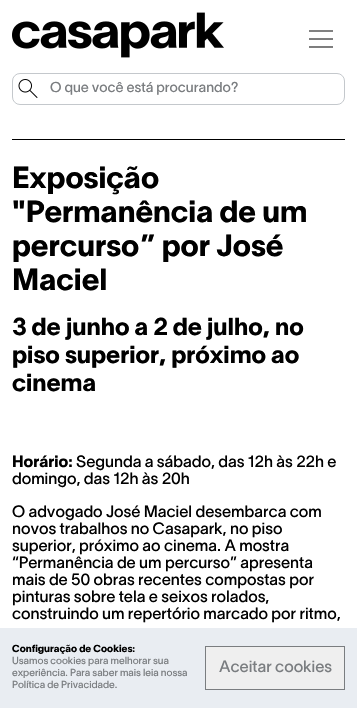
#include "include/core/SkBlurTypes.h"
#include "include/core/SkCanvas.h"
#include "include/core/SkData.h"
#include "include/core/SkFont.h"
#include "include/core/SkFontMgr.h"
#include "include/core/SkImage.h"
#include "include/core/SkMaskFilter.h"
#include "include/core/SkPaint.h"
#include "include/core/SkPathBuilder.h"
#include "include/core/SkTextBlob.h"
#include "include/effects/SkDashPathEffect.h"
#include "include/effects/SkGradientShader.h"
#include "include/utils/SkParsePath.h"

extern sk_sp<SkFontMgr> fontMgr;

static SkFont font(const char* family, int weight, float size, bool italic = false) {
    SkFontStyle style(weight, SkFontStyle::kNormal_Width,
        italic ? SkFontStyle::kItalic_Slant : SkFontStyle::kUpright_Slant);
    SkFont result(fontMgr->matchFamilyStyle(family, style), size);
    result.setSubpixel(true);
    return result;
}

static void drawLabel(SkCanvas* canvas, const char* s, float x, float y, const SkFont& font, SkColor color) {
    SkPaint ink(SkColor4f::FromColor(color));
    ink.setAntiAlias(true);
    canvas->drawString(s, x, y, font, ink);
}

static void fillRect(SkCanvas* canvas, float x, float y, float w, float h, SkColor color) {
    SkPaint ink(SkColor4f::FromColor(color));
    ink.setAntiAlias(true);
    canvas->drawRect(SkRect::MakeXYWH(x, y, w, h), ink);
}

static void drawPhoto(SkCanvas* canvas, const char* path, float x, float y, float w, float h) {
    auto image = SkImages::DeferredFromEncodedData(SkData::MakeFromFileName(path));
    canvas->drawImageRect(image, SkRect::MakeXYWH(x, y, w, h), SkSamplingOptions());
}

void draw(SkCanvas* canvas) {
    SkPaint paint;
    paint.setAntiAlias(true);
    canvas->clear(0xFFFFFFFF);
    drawPhoto(canvas, "assets/img1.png", 12, 12, 212, 46);
    drawPhoto(canvas, "assets/img2.png", 309, 30, 24, 18);
    paint.setStroke(true);
    paint.setStrokeWidth(1);
    paint.setColor(0xFFC4C8CC);
    canvas->drawRoundRect(SkRect::MakeXYWH(12.5f, 73.5f, 332, 31), 7.5f, 7.5f, paint);
    drawPhoto(canvas, "assets/img3.png", 18, 79, 20, 19);
    SkFont font1 = font("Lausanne", 400, 14);
    drawLabel(canvas, "O que você está procurando?", 50, 92, font1, 0xFF7A7D80);
    fillRect(canvas, 12, 139, 333, 1, 0xFF000000);
    SkFont font2 = font("Lausanne", 800, 30);
    drawLabel(canvas, "Exposição", 12, 188, font2, 0xFF000000);
    drawLabel(canvas, "\"Permanência de um", 12, 222, font2, 0xFF000000);
    drawLabel(canvas, "percurso” por José", 12, 256, font2, 0xFF000000);
    drawLabel(canvas, "Maciel", 12, 290, font2, 0xFF000000);
    SkFont font3 = font("Lausanne", 800, 24);
    drawLabel(canvas, "3 de junho a 2 de julho, no", 12, 335, font3, 0xFF000000);
    drawLabel(canvas, "piso superior, próximo ao", 12, 363, font3, 0xFF000000);
    drawLabel(canvas, "cinema", 12, 391, font3, 0xFF000000);
    SkFont font4 = font("Lausanne", 800, 16);
    drawLabel(canvas, "Horário:", 12, 467, font4, 0xFF000000);
    SkFont font5 = font("Lausanne", 400, 16);
    drawLabel(canvas, "Segunda a sábado, das 12h às 22h e", 76, 467, font5, 0xFF000000);
    drawLabel(canvas, "domingo, das 12h às 20h", 12, 484, font5, 0xFF000000);
    drawLabel(canvas, "O advogado José Maciel desembarca com", 12, 517, font5, 0xFF000000);
    drawLabel(canvas, "novos trabalhos no Casapark, no piso", 12, 534, font5, 0xFF000000);
    drawLabel(canvas, "superior, próximo ao cinema. A mostra", 12, 551, font5, 0xFF000000);
    drawLabel(canvas, "“Permanência de um percurso” apresenta", 12, 568, font5, 0xFF000000);
    drawLabel(canvas, "mais de 50 obras recentes compostas por", 12, 585, font5, 0xFF000000);
    drawLabel(canvas, "pinturas sobre tela e seixos rolados,", 12, 602, font5, 0xFF000000);
    drawLabel(canvas, "construindo um repertório marcado por ritmo,", 12, 619, font5, 0xFF000000);
    fillRect(canvas, 0, 628, 357, 80, 0xFFE9EDF2);
    SkFont font6 = font("Lausanne", 800, 10);
    drawLabel(canvas, "Configuração de Cookies:", 12, 652, font6, 0xFF000000);
    SkFont font7 = font("Lausanne", 400, 10);
    drawLabel(canvas, "Usamos cookies para melhorar sua", 12, 664, font7, 0xFF7A7D80);
    drawLabel(canvas, "experiência. Para saber mais leia nossa", 12, 676, font7, 0xFF7A7D80);
    drawLabel(canvas, "Política de Privacidade.", 12, 688, font7, 0xFF7A7D80);
    paint.setStroke(false);
    paint.setColor(0xFFEFEFEF);
    canvas->drawRect(SkRect::MakeXYWH(205.5f, 646.5f, 139, 43), paint);
    paint.setStroke(true);
    paint.setColor(0xFF7A7D80);
    canvas->drawRect(SkRect::MakeXYWH(205.5f, 646.5f, 139, 43), paint);
    drawLabel(canvas, "Aceitar cookies", 219, 672, font5, 0xFF7A7D80);
}
